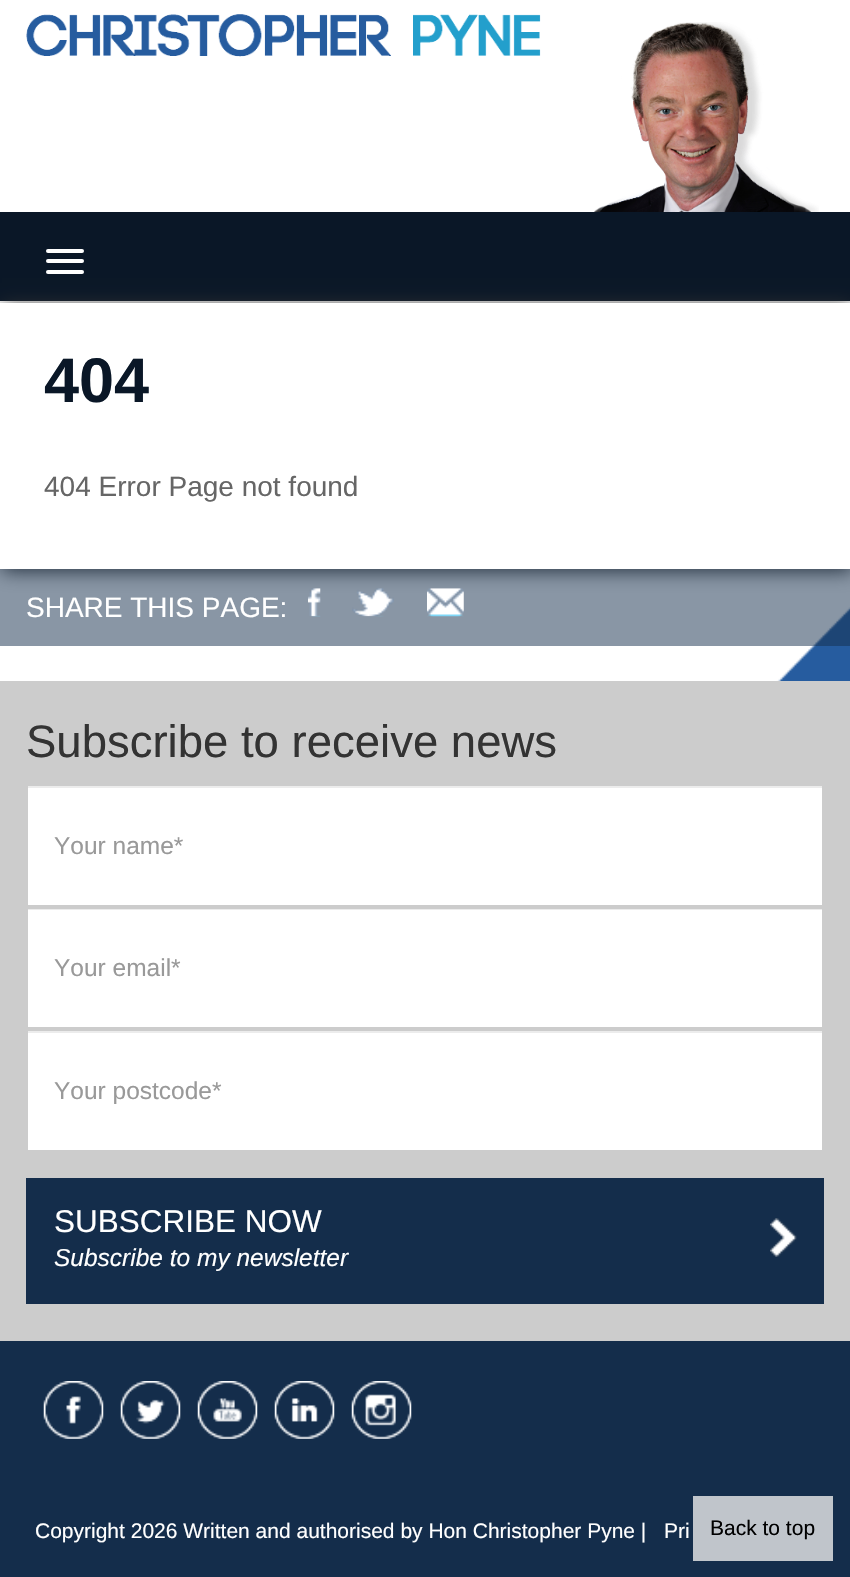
#include "include/core/SkBlurTypes.h"
#include "include/core/SkCanvas.h"
#include "include/core/SkData.h"
#include "include/core/SkFont.h"
#include "include/core/SkFontMgr.h"
#include "include/core/SkImage.h"
#include "include/core/SkMaskFilter.h"
#include "include/core/SkPaint.h"
#include "include/core/SkPathBuilder.h"
#include "include/core/SkTextBlob.h"
#include "include/effects/SkDashPathEffect.h"
#include "include/effects/SkGradientShader.h"
#include "include/utils/SkParsePath.h"

extern sk_sp<SkFontMgr> fontMgr;

static SkFont font(const char* family, int weight, float size, bool italic = false) {
    SkFontStyle style(weight, SkFontStyle::kNormal_Width,
        italic ? SkFontStyle::kItalic_Slant : SkFontStyle::kUpright_Slant);
    SkFont result(fontMgr->matchFamilyStyle(family, style), size);
    result.setSubpixel(true);
    return result;
}

static void drawLabel(SkCanvas* canvas, const char* s, float x, float y, const SkFont& font, SkColor color) {
    SkPaint ink(SkColor4f::FromColor(color));
    ink.setAntiAlias(true);
    canvas->drawString(s, x, y, font, ink);
}

static void fillRect(SkCanvas* canvas, float x, float y, float w, float h, SkColor color) {
    SkPaint ink(SkColor4f::FromColor(color));
    ink.setAntiAlias(true);
    canvas->drawRect(SkRect::MakeXYWH(x, y, w, h), ink);
}

static void fillRRect(SkCanvas* canvas, float x, float y, float w, float h, float radius, SkColor color) {
    SkPaint ink(SkColor4f::FromColor(color));
    ink.setAntiAlias(true);
    canvas->drawRoundRect(SkRect::MakeXYWH(x, y, w, h), radius, radius, ink);
}

static void drawPhoto(SkCanvas* canvas, const char* path, float x, float y, float w, float h) {
    auto image = SkImages::DeferredFromEncodedData(SkData::MakeFromFileName(path));
    canvas->drawImageRect(image, SkRect::MakeXYWH(x, y, w, h), SkSamplingOptions());
}

void draw(SkCanvas* canvas) {
    SkPaint paint;
    paint.setAntiAlias(true);
    canvas->clear(0xFFFFFFFF);
    drawPhoto(canvas, "assets/img1.png", 0, 607, 850, 74);
    drawPhoto(canvas, "assets/img2.png", 26, 14, 515, 43);
    drawPhoto(canvas, "assets/img3.png", 594, 22, 225, 190);
    fillRect(canvas, 0, 212, 850, 89, 0xFF0A1727);
    fillRRect(canvas, 46, 249, 38, 4, 2, 0xFFFFFFFF);
    fillRRect(canvas, 46, 259, 38, 4, 2, 0xFFFFFFFF);
    fillRRect(canvas, 46, 270, 38, 4, 2, 0xFFFFFFFF);
    paint.setColor(0xFF333333);
    paint.setMaskFilter(SkMaskFilter::MakeBlur(kNormal_SkBlurStyle, 9));
    canvas->drawRect(SkRect::MakeXYWH(2, 305, 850, 266), paint);
    paint.setMaskFilter(nullptr);
    fillRect(canvas, 0, 303, 850, 266, 0xFFFFFFFF);
    SkFont font1 = font("Liberation Sans", 700, 63);
    drawLabel(canvas, "404", 44, 402, font1, 0xFF0A1727);
    SkFont font2 = font("Liberation Sans", 400, 28);
    drawLabel(canvas, "404 Error Page not found", 44, 496, font2, 0xFF666666);
    fillRect(canvas, 0, 569, 850, 77, 0x80142D4B);
    drawLabel(canvas, "SHARE THIS PAGE:", 26, 617, font2, 0xFFFFFFFF);
    drawPhoto(canvas, "assets/img4.png", 308, 588, 13, 29);
    drawPhoto(canvas, "assets/img5.png", 352, 588, 42, 29);
    drawPhoto(canvas, "assets/img6.png", 427, 588, 37, 29);
    fillRect(canvas, 0, 681, 850, 660, 0xFFCCCCCC);
    SkFont font3 = font("Liberation Sans", 400, 45.5f);
    drawLabel(canvas, "Subscribe to receive news", 26, 757, font3, 0xFF333333);
    fillRect(canvas, 28, 788, 794, 117, 0xFFFFFFFF);
    fillRect(canvas, 28, 786, 795, 2, 0xFFECECEC);
    paint.setStroke(true);
    paint.setStrokeWidth(2);
    paint.setColor(0xFFCCCCCC);
    canvas->drawRect(SkRect::MakeXYWH(27, 785, 796, 121), paint);
    SkFont font4 = font("Liberation Sans", 400, 24.5f);
    drawLabel(canvas, "Your name*", 54, 854, font4, 0xFF999999);
    fillRect(canvas, 28, 910, 794, 117, 0xFFFFFFFF);
    fillRect(canvas, 28, 909, 795, 1, 0xFFECECEC);
    canvas->drawRect(SkRect::MakeXYWH(27, 908, 796, 120), paint);
    drawLabel(canvas, "Your email*", 54, 976, font4, 0xFF999999);
    fillRect(canvas, 28, 1033, 794, 117, 0xFFFFFFFF);
    fillRect(canvas, 28, 1031, 795, 2, 0xFFECECEC);
    canvas->drawRect(SkRect::MakeXYWH(27, 1030, 796, 121), paint);
    drawLabel(canvas, "Your postcode*", 54, 1099, font4, 0xFF999999);
    fillRect(canvas, 26, 1178, 798, 126, 0xFF142D4B);
    SkFont font5 = font("Liberation Sans", 400, 31.5f);
    drawLabel(canvas, "SUBSCRIBE NOW", 54, 1232, font5, 0xFFFFFFFF);
    drawPhoto(canvas, "assets/img7.png", 770, 1218, 27, 39);
    SkFont font6 = font("Liberation Sans", 400, 24.5f, true);
    drawLabel(canvas, "Subscribe to my newsletter", 54, 1266, font6, 0xFFFFFFFF);
    fillRect(canvas, 0, 1341, 850, 236, 0xFF142D4B);
    drawPhoto(canvas, "assets/img8.png", 43, 1381, 61, 58);
    drawPhoto(canvas, "assets/img9.png", 120, 1381, 61, 58);
    drawPhoto(canvas, "assets/img10.png", 197, 1381, 61, 58);
    drawPhoto(canvas, "assets/img11.png", 274, 1381, 61, 58);
    drawPhoto(canvas, "assets/img12.png", 351, 1381, 61, 58);
    SkFont font7 = font("Liberation Sans", 400, 21);
    drawLabel(canvas, "Copyright 2026 Written and authorised by Hon Christopher Pyne |", 35, 1538, font7, 0xFFFFFFFF);
    drawLabel(canvas, "Pri", 664, 1538, font7, 0xFFFFFFFF);
    fillRect(canvas, 693, 1496, 140, 65, 0xCCEBEBEB);
    drawLabel(canvas, "Back to top", 710, 1535, font7, 0xFF000000);
}
